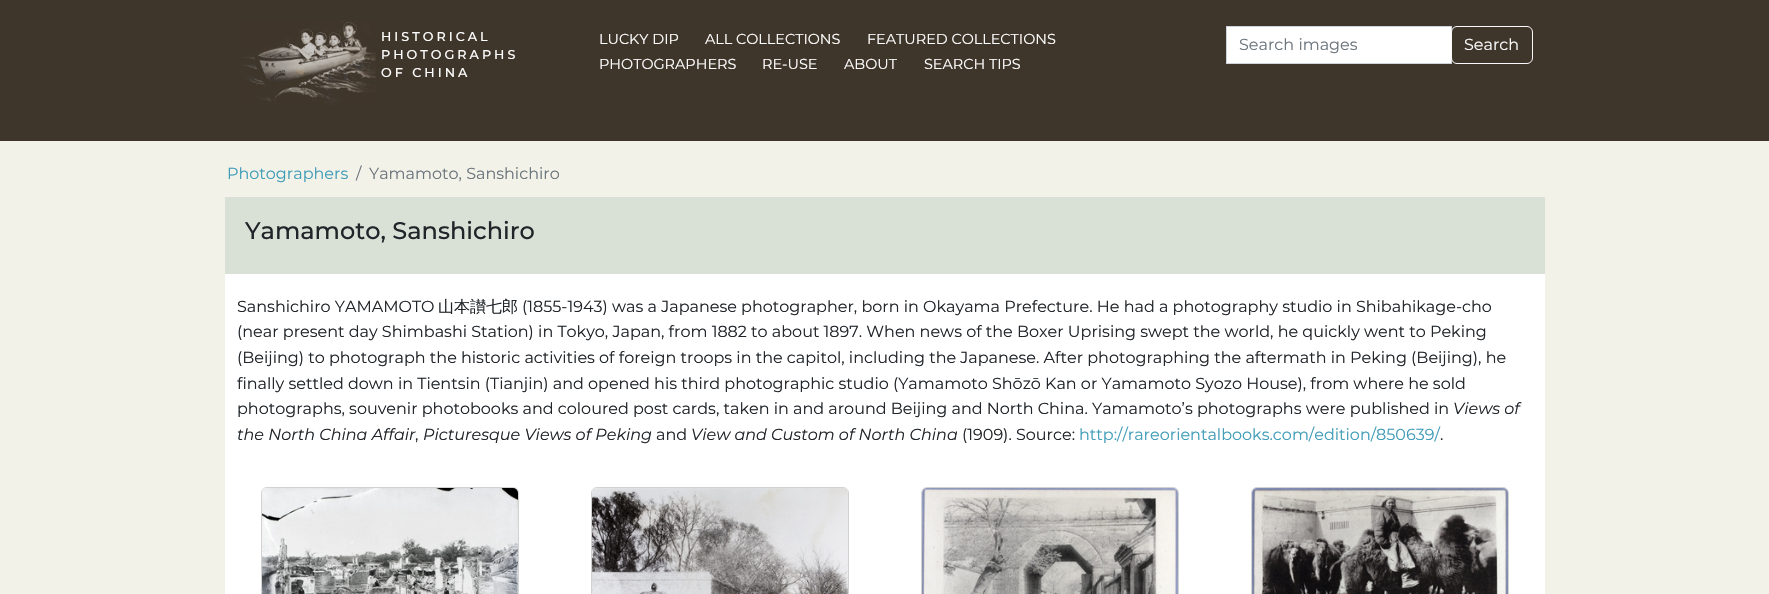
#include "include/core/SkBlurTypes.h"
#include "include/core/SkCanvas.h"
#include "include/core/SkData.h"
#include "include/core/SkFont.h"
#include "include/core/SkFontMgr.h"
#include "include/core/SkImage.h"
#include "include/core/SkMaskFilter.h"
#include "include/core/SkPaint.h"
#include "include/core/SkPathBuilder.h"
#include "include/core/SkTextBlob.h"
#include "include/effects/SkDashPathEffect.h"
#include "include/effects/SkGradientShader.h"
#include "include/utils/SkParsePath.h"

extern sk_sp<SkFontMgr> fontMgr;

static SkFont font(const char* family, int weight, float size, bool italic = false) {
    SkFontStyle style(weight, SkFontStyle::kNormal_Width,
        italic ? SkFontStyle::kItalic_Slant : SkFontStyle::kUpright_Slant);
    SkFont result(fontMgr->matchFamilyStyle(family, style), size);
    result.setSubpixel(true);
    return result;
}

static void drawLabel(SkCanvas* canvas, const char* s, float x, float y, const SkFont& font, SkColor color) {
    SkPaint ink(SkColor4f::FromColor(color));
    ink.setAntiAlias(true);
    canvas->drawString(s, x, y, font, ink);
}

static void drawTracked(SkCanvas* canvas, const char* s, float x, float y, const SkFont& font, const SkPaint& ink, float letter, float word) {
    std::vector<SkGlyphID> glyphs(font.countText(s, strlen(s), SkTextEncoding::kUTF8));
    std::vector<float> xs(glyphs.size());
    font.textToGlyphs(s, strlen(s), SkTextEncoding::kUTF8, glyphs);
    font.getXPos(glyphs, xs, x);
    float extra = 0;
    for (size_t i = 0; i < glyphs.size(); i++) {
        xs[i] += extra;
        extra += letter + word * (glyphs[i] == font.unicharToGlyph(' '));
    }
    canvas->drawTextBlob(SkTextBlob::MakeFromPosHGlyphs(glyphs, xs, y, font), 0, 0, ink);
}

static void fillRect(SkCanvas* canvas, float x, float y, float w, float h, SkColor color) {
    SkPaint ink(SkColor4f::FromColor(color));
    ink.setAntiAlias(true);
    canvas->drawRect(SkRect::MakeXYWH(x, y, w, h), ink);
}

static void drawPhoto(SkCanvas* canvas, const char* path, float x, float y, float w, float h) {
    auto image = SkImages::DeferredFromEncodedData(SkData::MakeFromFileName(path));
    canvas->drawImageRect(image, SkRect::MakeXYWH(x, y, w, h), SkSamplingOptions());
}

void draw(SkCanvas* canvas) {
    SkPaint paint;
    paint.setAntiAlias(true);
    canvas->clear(0xFFF2F2E9);
    fillRect(canvas, 0, 0, 1769, 141, 0xFF3F362B);
    drawPhoto(canvas, "assets/img1.png", 239, 20, 137, 85);
    SkFont font1 = font("Montserrat", 500, 12.75f);
    paint.setColor(0xFFFFFFFF);
    drawTracked(canvas, "HISTORICAL", 381, 41, font1, paint, 3, 0);
    drawTracked(canvas, "PHOTOGRAPHS", 381, 59, font1, paint, 3, 0);
    drawTracked(canvas, "OF CHINA", 381, 77, font1, paint, 3, 0);
    SkFont font2 = font("Montserrat", 400, 14.4f);
    drawLabel(canvas, "LUCKY DIP", 599, 44, font2, 0xFFFFFFFF);
    drawLabel(canvas, "ALL COLLECTIONS", 705, 44, font2, 0xFFFFFFFF);
    drawLabel(canvas, "FEATURED COLLECTIONS", 867, 44, font2, 0xFFFFFFFF);
    drawLabel(canvas, "PHOTOGRAPHERS", 599, 69, font2, 0xFFFFFFFF);
    drawLabel(canvas, "RE-USE", 762, 69, font2, 0xFFFFFFFF);
    drawLabel(canvas, "ABOUT", 844, 69, font2, 0xFFFFFFFF);
    drawLabel(canvas, "SEARCH TIPS", 924, 69, font2, 0xFFFFFFFF);
    canvas->drawRect(SkRect::MakeXYWH(1226.5f, 26.5f, 225, 37), paint);
    paint.setStroke(true);
    paint.setStrokeWidth(1);
    paint.setColor(0xFFCED4DA);
    canvas->drawRect(SkRect::MakeXYWH(1226.5f, 26.5f, 225, 37), paint);
    SkFont font3 = font("Montserrat", 400, 16);
    drawLabel(canvas, "Search images", 1239, 50, font3, 0xFF6C757D);
    paint.setColor(0xFFF8F9FA);
    canvas->drawRoundRect(SkRect::MakeXYWH(1451.5f, 26.5f, 81, 37), 5.5f, 5.5f, paint);
    drawLabel(canvas, "Search", 1464, 50, font3, 0xFFF8F9FA);
    fillRect(canvas, 225, 274, 1320, 320, 0xFFFFFFFF);
    drawLabel(canvas, "Photographers", 227, 179, font3, 0xFF419DB8);
    drawLabel(canvas, "/", 356, 179, font3, 0xFF6C757D);
    drawLabel(canvas, "Yamamoto, Sanshichiro", 369, 179, font3, 0xFF6C757D);
    fillRect(canvas, 225, 197, 1320, 77, 0xFFD9E0D6);
    SkFont font4 = font("Montserrat", 500, 24);
    drawLabel(canvas, "Yamamoto, Sanshichiro", 245, 239, font4, 0xFF212529);
    drawLabel(canvas, "Sanshichiro YAMAMOTO", 237, 312, font3, 0xFF212529);
    SkFont font5 = font("WenQuanYi Zen Hei", 500, 16);
    drawLabel(canvas, "山本讃七郎", 438, 312, font5, 0xFF212529);
    drawLabel(canvas, "(1855-1943) was a Japanese photographer, born in Okayama Prefecture. He had a photography studio in Shibahikage-cho", 522, 312, font3, 0xFF212529);
    drawLabel(canvas, "(near present day Shimbashi Station) in Tokyo, Japan, from 1882 to about 1897. When news of the Boxer Uprising swept the world, he quickly went to Peking", 237, 337, font3, 0xFF212529);
    drawLabel(canvas, "(Beijing) to photograph the historic activities of foreign troops in the capitol, including the Japanese. After photographing the aftermath in Peking (Beijing), he", 237, 363, font3, 0xFF212529);
    drawLabel(canvas, "finally settled down in Tientsin (Tianjin) and opened his third photographic studio (Yamamoto Shōzō Kan or Yamamoto Syozo House), from where he sold", 237, 389, font3, 0xFF212529);
    drawLabel(canvas, "photographs, souvenir photobooks and coloured post cards, taken in and around Beijing and North China. Yamamoto’s photographs were published in", 237, 414, font3, 0xFF212529);
    SkFont font6 = font("Montserrat", 400, 16, true);
    drawLabel(canvas, "Views of", 1453, 414, font6, 0xFF212529);
    drawLabel(canvas, "the North China Affair", 237, 440, font6, 0xFF212529);
    drawLabel(canvas, ",", 415, 440, font3, 0xFF212529);
    drawLabel(canvas, "Picturesque Views of Peking", 423, 440, font6, 0xFF212529);
    drawLabel(canvas, "and", 656, 440, font3, 0xFF212529);
    drawLabel(canvas, "View and Custom of North China", 691, 440, font6, 0xFF212529);
    drawLabel(canvas, "(1909). Source:", 962, 440, font3, 0xFF212529);
    drawLabel(canvas, "http://rareorientalbooks.com/edition/850639/", 1079, 440, font3, 0xFF419DB8);
    drawLabel(canvas, ".", 1440, 440, font3, 0xFF212529);
    paint.setColor(0xFFD2D2D2);
    canvas->drawRoundRect(SkRect::MakeXYWH(261.5f, 487.5f, 257, 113), 5.5f, 5.5f, paint);
    drawPhoto(canvas, "assets/img2.png", 262, 488, 256, 106);
    canvas->drawRoundRect(SkRect::MakeXYWH(591.5f, 487.5f, 257, 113), 5.5f, 5.5f, paint);
    drawPhoto(canvas, "assets/img3.png", 592, 488, 256, 106);
    canvas->drawRoundRect(SkRect::MakeXYWH(921.5f, 487.5f, 257, 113), 5.5f, 5.5f, paint);
    drawPhoto(canvas, "assets/img4.png", 922, 488, 256, 106);
    canvas->drawRoundRect(SkRect::MakeXYWH(1251.5f, 487.5f, 257, 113), 5.5f, 5.5f, paint);
    drawPhoto(canvas, "assets/img5.png", 1252, 488, 256, 106);
}
